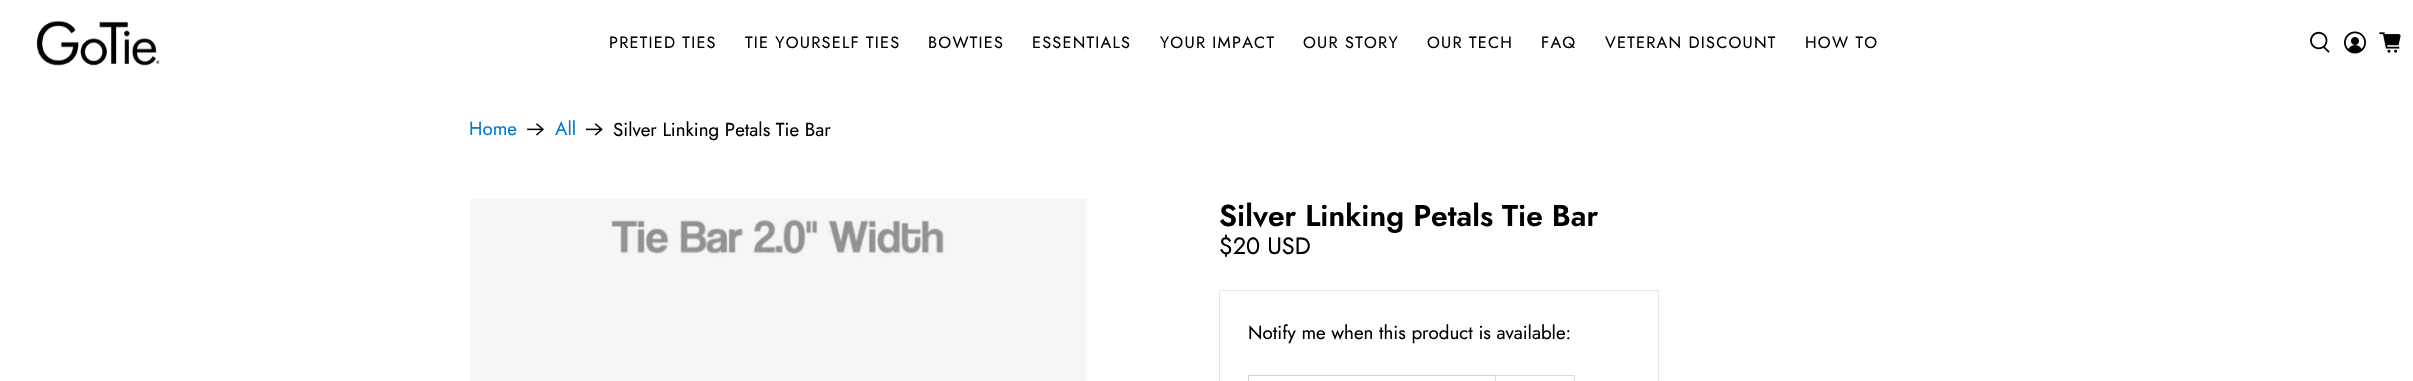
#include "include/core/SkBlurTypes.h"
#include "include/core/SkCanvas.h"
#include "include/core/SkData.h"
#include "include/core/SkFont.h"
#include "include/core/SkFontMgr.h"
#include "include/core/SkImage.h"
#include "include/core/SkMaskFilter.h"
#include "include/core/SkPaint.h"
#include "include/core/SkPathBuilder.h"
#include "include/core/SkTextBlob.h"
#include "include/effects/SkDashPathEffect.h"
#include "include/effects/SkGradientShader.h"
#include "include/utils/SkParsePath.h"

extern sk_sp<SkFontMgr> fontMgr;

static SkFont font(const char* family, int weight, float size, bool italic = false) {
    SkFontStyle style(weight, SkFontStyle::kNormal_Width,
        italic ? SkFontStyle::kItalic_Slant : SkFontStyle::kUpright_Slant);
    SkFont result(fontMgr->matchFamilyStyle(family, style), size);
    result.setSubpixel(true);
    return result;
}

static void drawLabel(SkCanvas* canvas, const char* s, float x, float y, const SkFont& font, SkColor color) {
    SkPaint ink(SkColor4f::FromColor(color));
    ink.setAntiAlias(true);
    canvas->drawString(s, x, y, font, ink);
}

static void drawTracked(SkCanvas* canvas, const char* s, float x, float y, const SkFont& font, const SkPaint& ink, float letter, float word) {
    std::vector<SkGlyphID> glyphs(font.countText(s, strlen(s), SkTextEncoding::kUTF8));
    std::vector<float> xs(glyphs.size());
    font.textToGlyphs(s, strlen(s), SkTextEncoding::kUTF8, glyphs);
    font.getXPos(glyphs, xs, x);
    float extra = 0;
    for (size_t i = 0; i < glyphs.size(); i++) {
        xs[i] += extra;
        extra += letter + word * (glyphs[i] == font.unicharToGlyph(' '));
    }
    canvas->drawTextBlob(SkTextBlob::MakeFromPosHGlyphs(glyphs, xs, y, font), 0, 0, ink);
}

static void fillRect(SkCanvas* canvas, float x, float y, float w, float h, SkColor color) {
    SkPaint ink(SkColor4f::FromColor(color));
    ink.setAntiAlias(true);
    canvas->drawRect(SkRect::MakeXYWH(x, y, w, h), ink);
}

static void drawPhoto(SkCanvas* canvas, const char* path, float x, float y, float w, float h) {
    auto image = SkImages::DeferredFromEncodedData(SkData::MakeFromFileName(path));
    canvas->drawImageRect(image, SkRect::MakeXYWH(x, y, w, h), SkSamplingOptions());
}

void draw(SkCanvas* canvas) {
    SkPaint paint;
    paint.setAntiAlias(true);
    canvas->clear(0xFFFFFFFF);
    drawPhoto(canvas, "assets/img1.png", 36, 21, 124, 45);
    SkFont font1 = font("Jost", 400, 16.25f);
    paint.setColor(0xFF000000);
    drawTracked(canvas, "PRETIED TIES", 609, 48, font1, paint, 1.25f, 0);
    drawTracked(canvas, "TIE YOURSELF TIES", 745, 48, font1, paint, 1.25f, 0);
    drawTracked(canvas, "BOWTIES", 928, 48, font1, paint, 1.25f, 0);
    drawTracked(canvas, "ESSENTIALS", 1032, 48, font1, paint, 1.25f, 0);
    drawTracked(canvas, "YOUR IMPACT", 1160, 48, font1, paint, 1.25f, 0);
    drawTracked(canvas, "OUR STORY", 1303, 48, font1, paint, 1.25f, 0);
    drawTracked(canvas, "OUR TECH", 1427, 48, font1, paint, 1.25f, 0);
    drawTracked(canvas, "FAQ", 1541, 48, font1, paint, 1.25f, 0);
    drawTracked(canvas, "VETERAN DISCOUNT", 1605, 48, font1, paint, 1.25f, 0);
    drawTracked(canvas, "HOW TO", 1805, 48, font1, paint, 1.25f, 0);
    drawPhoto(canvas, "assets/img2.png", 2310, 31, 20, 22);
    drawPhoto(canvas, "assets/img3.png", 2344, 31, 22, 23);
    drawPhoto(canvas, "assets/img4.png", 2379, 32, 22, 21);
    SkFont font2 = font("Jost", 400, 18.75f);
    drawLabel(canvas, "Home", 469, 135, font2, 0xFF007ACE);
    drawPhoto(canvas, "assets/img5.png", 527, 123, 17, 13);
    drawLabel(canvas, "All", 555, 135, font2, 0xFF007ACE);
    drawPhoto(canvas, "assets/img6.png", 585, 123, 18, 13);
    drawLabel(canvas, "Silver Linking Petals Tie Bar", 613, 136, font2, 0xFF000000);
    drawPhoto(canvas, "assets/img7.png", 470, 199, 617, 182);
    SkFont font3 = font("Jost", 600, 30);
    drawLabel(canvas, "Silver Linking Petals Tie Bar", 1219, 226, font3, 0xFF000000);
    SkFont font4 = font("Jost", 400, 23.5f);
    drawLabel(canvas, "$20 USD", 1219, 254, font4, 0xFF000000);
    paint.setStroke(true);
    paint.setStrokeWidth(1);
    paint.setColor(0xFFE6E6E6);
    canvas->drawRect(SkRect::MakeXYWH(1219.5f, 290.5f, 439, 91), paint);
    drawLabel(canvas, "Notify me when this product is available:", 1248, 339, font2, 0xFF000000);
    paint.setColor(0xFFD3D3D3);
    canvas->drawRect(SkRect::MakeXYWH(1248.5f, 375.5f, 247, 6), paint);
    fillRect(canvas, 1495, 376, 1, 5, 0xFFFFFFFF);
    paint.setColor(0xFFDBDBDB);
    canvas->drawRect(SkRect::MakeXYWH(1495.5f, 375.5f, 79, 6), paint);
}
